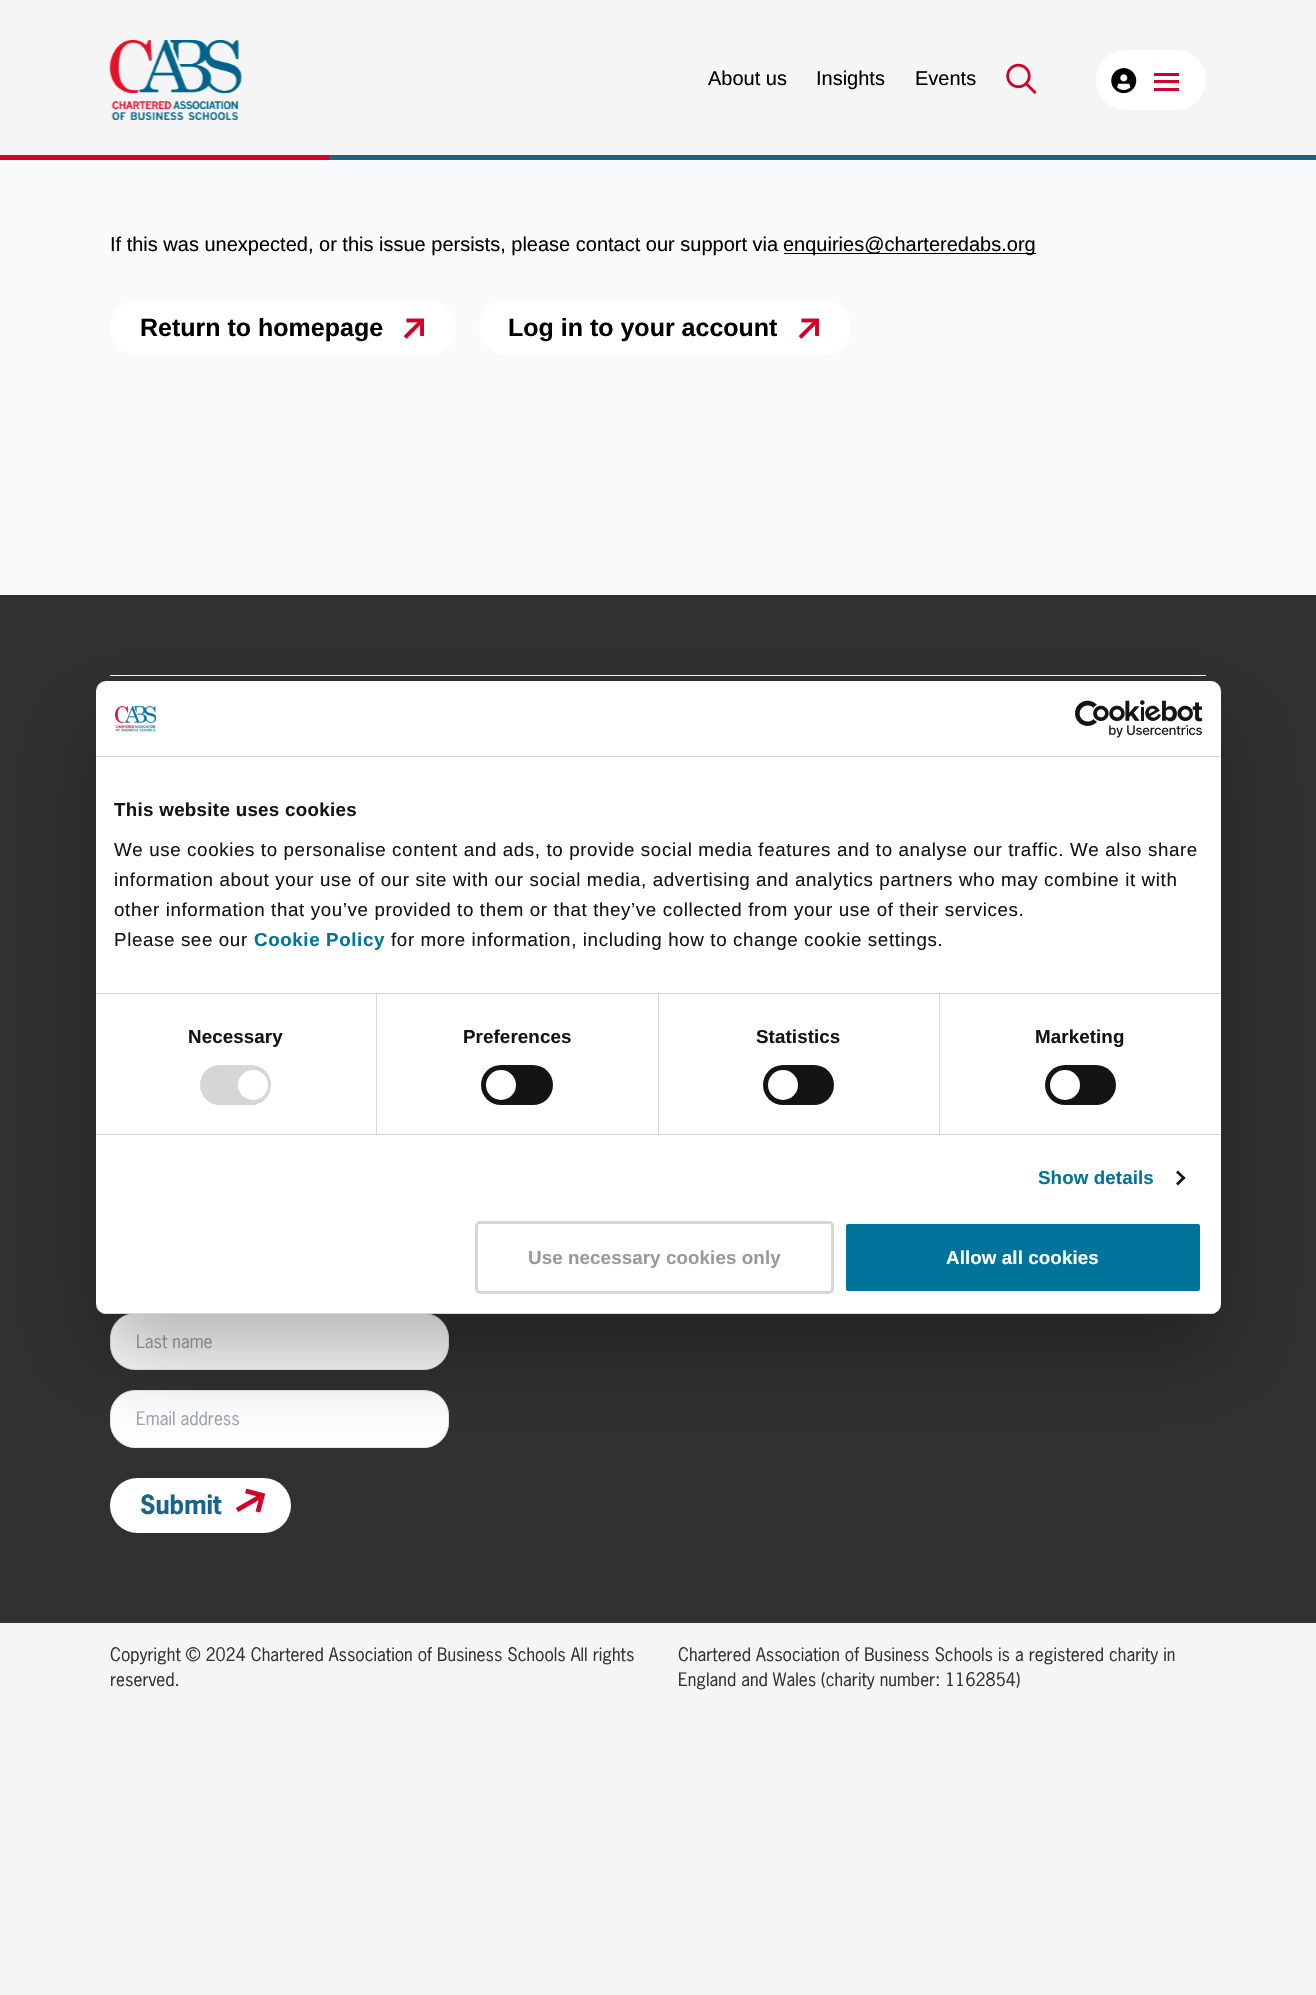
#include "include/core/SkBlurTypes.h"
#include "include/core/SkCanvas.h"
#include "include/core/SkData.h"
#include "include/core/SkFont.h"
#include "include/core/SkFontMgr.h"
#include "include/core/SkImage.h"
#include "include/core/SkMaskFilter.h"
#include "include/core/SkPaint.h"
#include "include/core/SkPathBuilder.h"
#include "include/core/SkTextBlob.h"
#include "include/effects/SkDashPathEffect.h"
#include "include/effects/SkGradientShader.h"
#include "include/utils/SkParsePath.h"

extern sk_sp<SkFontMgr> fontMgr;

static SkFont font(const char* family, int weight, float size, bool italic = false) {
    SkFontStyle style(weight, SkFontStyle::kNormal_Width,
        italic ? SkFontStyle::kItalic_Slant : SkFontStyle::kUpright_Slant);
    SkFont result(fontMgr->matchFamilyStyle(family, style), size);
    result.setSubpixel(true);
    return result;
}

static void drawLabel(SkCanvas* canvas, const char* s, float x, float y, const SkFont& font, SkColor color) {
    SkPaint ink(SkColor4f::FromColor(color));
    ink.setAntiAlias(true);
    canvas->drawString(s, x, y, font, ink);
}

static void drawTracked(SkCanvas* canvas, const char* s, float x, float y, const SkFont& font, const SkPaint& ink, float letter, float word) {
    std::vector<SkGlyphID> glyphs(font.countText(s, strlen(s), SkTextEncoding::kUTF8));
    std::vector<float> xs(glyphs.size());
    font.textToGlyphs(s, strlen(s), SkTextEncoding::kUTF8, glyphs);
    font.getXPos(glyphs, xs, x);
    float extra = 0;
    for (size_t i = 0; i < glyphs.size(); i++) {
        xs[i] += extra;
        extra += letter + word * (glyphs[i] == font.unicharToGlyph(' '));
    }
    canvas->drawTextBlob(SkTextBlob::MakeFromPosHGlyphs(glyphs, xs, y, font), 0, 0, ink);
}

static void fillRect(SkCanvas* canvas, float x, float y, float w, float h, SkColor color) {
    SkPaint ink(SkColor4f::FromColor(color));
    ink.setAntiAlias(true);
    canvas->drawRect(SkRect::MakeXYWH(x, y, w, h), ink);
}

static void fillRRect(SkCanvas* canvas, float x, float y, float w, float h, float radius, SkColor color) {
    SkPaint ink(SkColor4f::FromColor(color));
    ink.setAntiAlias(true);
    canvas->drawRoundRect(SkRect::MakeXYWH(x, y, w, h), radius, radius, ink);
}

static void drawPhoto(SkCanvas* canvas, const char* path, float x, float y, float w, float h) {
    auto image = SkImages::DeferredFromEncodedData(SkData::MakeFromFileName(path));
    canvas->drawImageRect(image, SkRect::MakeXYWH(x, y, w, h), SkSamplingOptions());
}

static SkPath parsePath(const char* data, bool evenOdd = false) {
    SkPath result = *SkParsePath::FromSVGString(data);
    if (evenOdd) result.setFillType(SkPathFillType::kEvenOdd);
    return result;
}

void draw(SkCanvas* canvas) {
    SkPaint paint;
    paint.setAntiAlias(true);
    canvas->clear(0xFFF5F5F5);
    drawPhoto(canvas, "assets/img1.png", 109, 40, 133, 80);
    SkFont font1 = font("Liberation Sans", 400, 20);
    drawLabel(canvas, "About us", 708, 85, font1, 0xFF000000);
    drawLabel(canvas, "Insights", 816, 85, font1, 0xFF000000);
    drawLabel(canvas, "Events", 915, 85, font1, 0xFF000000);
    drawPhoto(canvas, "assets/img2.png", 1006, 63, 31, 31);
    fillRRect(canvas, 1096, 50, 110, 60, 30, 0xFFFFFFFF);
    drawPhoto(canvas, "assets/img3.png", 1111, 68, 26, 26);
    fillRect(canvas, 1154, 73, 25, 3, 0xFFD40027);
    fillRect(canvas, 1154, 80, 25, 3, 0xFFD40027);
    fillRect(canvas, 1154, 88, 25, 3, 0xFFD40027);
    fillRect(canvas, 0, 155, 329, 5, 0xFFD40027);
    fillRect(canvas, 329, 155, 987, 5, 0xFF196488);
    fillRect(canvas, 0, 160, 1316, 435, 0xFFF9FAFB);
    drawLabel(canvas, "If this was unexpected, or this issue persists, please contact our support via", 110, 251, font1, 0xFF000000);
    fillRect(canvas, 784, 253, 252, 1, 0xFF000000);
    drawLabel(canvas, "enquiries@charteredabs.org", 783, 251, font1, 0xFF000000);
    fillRRect(canvas, 110, 300, 346, 55, 27.5f, 0xFFFFFFFF);
    SkFont font2 = font("Liberation Sans", 700, 25);
    drawLabel(canvas, "Return to homepage", 140, 336, font2, 0xFF000000);
    drawPhoto(canvas, "assets/img4.png", 403, 318, 21, 21);
    fillRRect(canvas, 479, 300, 372, 55, 27.5f, 0xFFFFFFFF);
    drawLabel(canvas, "Log in to your account", 508, 336, font2, 0xFF000000);
    drawPhoto(canvas, "assets/img4.png", 798, 318, 21, 21);
    fillRect(canvas, 0, 595, 1316, 1028, 0xFF313133);
    fillRect(canvas, 110, 675, 1096, 1, 0xFFFFFFFF);
    paint.setColor(0xFFFFFFFF);
    canvas->drawRoundRect(SkRect::MakeXYWH(110.5f, 1313.5f, 338, 56), 24.5f, 24.5f, paint);
    paint.setStroke(true);
    paint.setStrokeWidth(1);
    paint.setColor(0xFFE5E7EB);
    canvas->drawRoundRect(SkRect::MakeXYWH(110.5f, 1313.5f, 338, 56), 24.5f, 24.5f, paint);
    SkFont font3 = font("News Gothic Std", 400, 17.5f);
    drawLabel(canvas, "Last name", 136, 1348, font3, 0xFF9CA3AF);
    paint.setStroke(false);
    paint.setColor(0xFFFFFFFF);
    canvas->drawRoundRect(SkRect::MakeXYWH(110.5f, 1390.5f, 338, 57), 24.5f, 24.5f, paint);
    paint.setStroke(true);
    paint.setColor(0xFFE5E7EB);
    canvas->drawRoundRect(SkRect::MakeXYWH(110.5f, 1390.5f, 338, 57), 24.5f, 24.5f, paint);
    drawLabel(canvas, "Email address", 136, 1425, font3, 0xFF9CA3AF);
    fillRRect(canvas, 110, 1478, 181, 55, 27.5f, 0xFFFFFFFF);
    SkFont font4 = font("News Gothic Std", 700, 25);
    drawLabel(canvas, "Submit", 140, 1514, font4, 0xFF196488);
    drawPhoto(canvas, "assets/img5.png", 235, 1488, 31, 25);
    drawLabel(canvas, "Copyright © 2024 Chartered Association of Business Schools All rights", 110, 1661, font3, 0xFF313133);
    drawLabel(canvas, "reserved.", 110, 1686, font3, 0xFF313133);
    drawLabel(canvas, "Chartered Association of Business Schools is a registered charity in", 678, 1661, font3, 0xFF313133);
    drawLabel(canvas, "England and Wales (charity number: 1162854)", 678, 1686, font3, 0xFF313133);
    paint.setStroke(false);
    paint.setColor(0x4D000000);
    paint.setMaskFilter(SkMaskFilter::MakeBlur(kNormal_SkBlurStyle, 42.5f));
    canvas->drawRoundRect(SkRect::MakeXYWH(96, 721, 1125, 633), 10, 10, paint);
    paint.setMaskFilter(nullptr);
    fillRRect(canvas, 96, 681, 1125, 633, 10, 0xFFFFFFFF);
    fillRect(canvas, 96, 756, 1125, 1, 0xFFD6D6D6);
    drawPhoto(canvas, "assets/img6.png", 115, 705, 42, 27);
    drawPhoto(canvas, "assets/img7.png", 1075, 700, 128, 38);
    fillRect(canvas, 96, 993, 1125, 1, 0xFFD6D6D6);
    SkFont font5 = font("Liberation Sans", 700, 18.75f);
    paint.setColor(0xFF141414);
    drawTracked(canvas, "This website uses cookies", 114, 816, font5, paint, 0.3f, 0);
    SkFont font6 = font("Liberation Sans", 400, 18.75f);
    drawTracked(canvas, "We use cookies to personalise content and ads, to provide social media features and to analyse our traffic. We also share", 114, 856, font6, paint, 0.62f, 0);
    drawTracked(canvas, "information about your use of our site with our social media, advertising and analytics partners who may combine it with", 114, 886, font6, paint, 0.62f, 0);
    drawTracked(canvas, "other information that you’ve provided to them or that they’ve collected from your use of their services.", 114, 916, font6, paint, 0.62f, 0);
    drawTracked(canvas, "Please see our", 114, 946, font6, paint, 0.62f, 0);
    paint.setColor(0xFF00749A);
    drawTracked(canvas, "Cookie Policy", 254, 946, font5, paint, 0.62f, 0);
    paint.setColor(0xFF141414);
    drawTracked(canvas, "for more information, including how to change cookie settings.", 391, 946, font6, paint, 0.62f, 0);
    fillRect(canvas, 96, 1134, 1125, 1, 0xFFD6D6D6);
    fillRect(canvas, 376, 994, 1, 140, 0xFFD6D6D6);
    drawTracked(canvas, "Necessary", 188, 1043, font5, paint, 0.1f, 0);
    fillRRect(canvas, 200, 1065, 71, 40, 20, 0xFFD6D6D6);
    paint.setColor(0xFFFFFFFF);
    canvas->drawCircle(253, 1085, 15, paint);
    fillRect(canvas, 658, 994, 1, 140, 0xFFD6D6D6);
    paint.setColor(0xFF141414);
    drawTracked(canvas, "Preferences", 463, 1043, font5, paint, 0.1f, 0);
    fillRRect(canvas, 481, 1065, 72, 40, 20, 0xFF141414);
    paint.setColor(0xFFFFFFFF);
    canvas->drawCircle(501, 1085, 15, paint);
    fillRect(canvas, 939, 994, 1, 140, 0xFFD6D6D6);
    paint.setColor(0xFF141414);
    drawTracked(canvas, "Statistics", 756, 1043, font5, paint, 0.1f, 0);
    fillRRect(canvas, 763, 1065, 71, 40, 20, 0xFF141414);
    paint.setColor(0xFFFFFFFF);
    canvas->drawCircle(783, 1085, 15, paint);
    paint.setColor(0xFF141414);
    drawTracked(canvas, "Marketing", 1035, 1043, font5, paint, 0.1f, 0);
    fillRRect(canvas, 1045, 1065, 71, 40, 20, 0xFF141414);
    paint.setColor(0xFFFFFFFF);
    canvas->drawCircle(1065, 1085, 15, paint);
    paint.setColor(0xFF00749A);
    drawTracked(canvas, "Show details", 1038, 1184, font5, paint, 0.1f, 0);
    paint.setColor(0xFF141414);
    canvas->drawPath(parsePath("M1178 1170.5L1185.5 1178L1183.5 1179.5L1176 1172.5Z"), paint);
    canvas->drawPath(parsePath("M1183.5 1176L1185.5 1178L1178 1185.5L1176 1183.5Z"), paint);
    canvas->save();
    canvas->clipPath(parsePath("M106 681H1211C1216.5 681 1221 685.5 1221 691V1304C1221 1309.5 1216.5 1314 1211 1314H106C100.5 1314 96 1309.5 96 1304V691C96 685.5 100.5 681 106 681Z"), true);
    fillRect(canvas, 96, 1313, 1125, 1, 0xFFD6D6D6);
    canvas->restore();
    paint.setStroke(true);
    paint.setStrokeWidth(3);
    paint.setColor(0xFFD6D6D6);
    canvas->drawRoundRect(SkRect::MakeXYWH(476.5f, 1222.5f, 356, 70), 3.5f, 3.5f, paint);
    paint.setStroke(false);
    paint.setColor(0xFF999999);
    drawTracked(canvas, "Use necessary cookies only", 528, 1264, font5, paint, 0.1f, 0);
    paint.setColor(0xFF00749A);
    canvas->drawRoundRect(SkRect::MakeXYWH(844.5f, 1222.5f, 357, 70), 3.5f, 3.5f, paint);
    paint.setStroke(true);
    paint.setColor(0xFFFFFFFF);
    canvas->drawRoundRect(SkRect::MakeXYWH(844.5f, 1222.5f, 357, 70), 3.5f, 3.5f, paint);
    paint.setStroke(false);
    drawTracked(canvas, "Allow all cookies", 946, 1264, font5, paint, 0.1f, 0);
}
